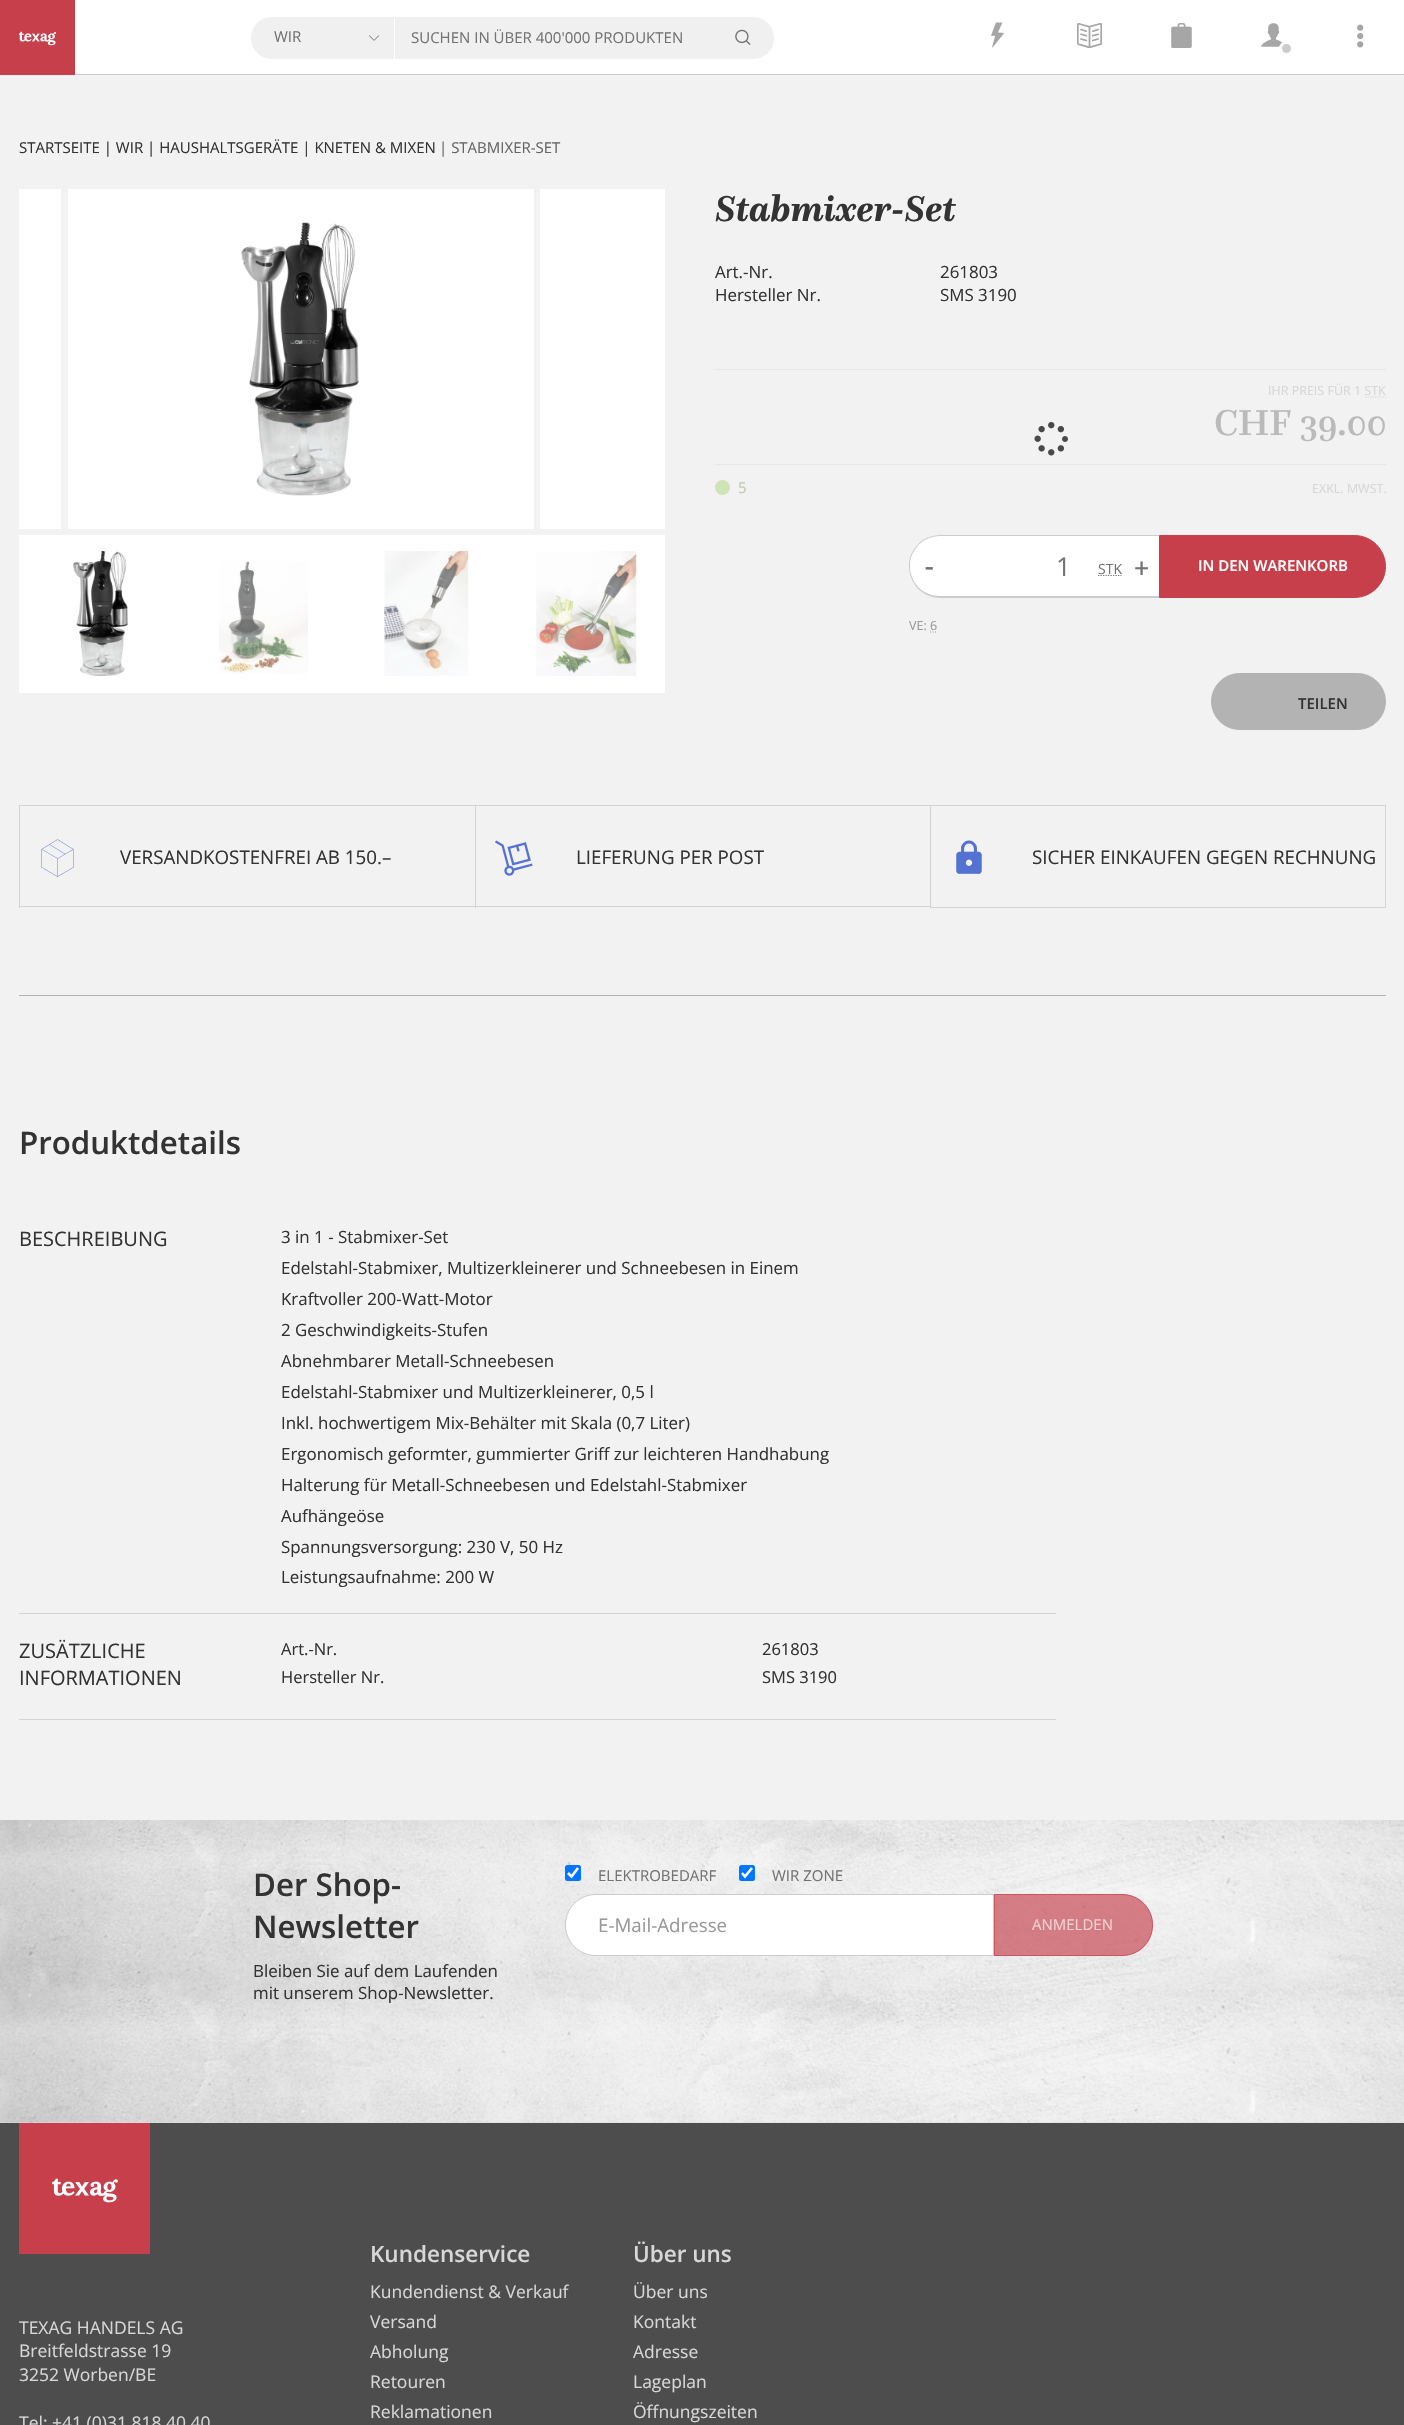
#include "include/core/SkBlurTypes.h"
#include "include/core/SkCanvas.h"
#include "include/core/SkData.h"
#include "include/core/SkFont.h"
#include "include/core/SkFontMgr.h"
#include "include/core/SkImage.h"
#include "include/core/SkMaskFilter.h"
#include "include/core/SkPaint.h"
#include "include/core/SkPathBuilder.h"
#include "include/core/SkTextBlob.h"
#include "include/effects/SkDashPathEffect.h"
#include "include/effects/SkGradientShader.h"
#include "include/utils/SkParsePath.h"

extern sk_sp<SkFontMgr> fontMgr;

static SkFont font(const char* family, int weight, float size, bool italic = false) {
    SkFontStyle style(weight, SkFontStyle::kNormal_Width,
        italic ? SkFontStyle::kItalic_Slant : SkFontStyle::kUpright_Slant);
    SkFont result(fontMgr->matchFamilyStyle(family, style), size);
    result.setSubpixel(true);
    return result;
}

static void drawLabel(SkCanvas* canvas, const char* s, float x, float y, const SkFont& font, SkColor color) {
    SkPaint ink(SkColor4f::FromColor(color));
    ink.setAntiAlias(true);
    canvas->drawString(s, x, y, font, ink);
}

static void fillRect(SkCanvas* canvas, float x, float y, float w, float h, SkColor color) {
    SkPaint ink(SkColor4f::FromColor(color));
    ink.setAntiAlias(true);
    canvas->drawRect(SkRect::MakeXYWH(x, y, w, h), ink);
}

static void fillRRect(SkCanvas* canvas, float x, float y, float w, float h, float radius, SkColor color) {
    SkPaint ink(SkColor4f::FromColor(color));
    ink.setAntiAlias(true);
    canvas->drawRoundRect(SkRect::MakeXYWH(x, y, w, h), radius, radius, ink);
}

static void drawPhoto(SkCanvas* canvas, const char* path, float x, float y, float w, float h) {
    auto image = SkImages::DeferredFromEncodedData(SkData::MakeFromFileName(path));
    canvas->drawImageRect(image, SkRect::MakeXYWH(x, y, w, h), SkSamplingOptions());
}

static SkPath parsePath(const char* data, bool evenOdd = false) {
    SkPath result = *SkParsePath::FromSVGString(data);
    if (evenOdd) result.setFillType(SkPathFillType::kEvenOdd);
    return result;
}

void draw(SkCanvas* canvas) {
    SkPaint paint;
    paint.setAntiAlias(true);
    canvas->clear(0xFFF2F2F2);
    fillRect(canvas, 75, 0, 1329, 74, 0xFFFFFFFF);
    fillRect(canvas, 0, 0, 75, 75, 0xFFC63F4A);
    drawPhoto(canvas, "assets/img1.png", 19, 31, 37, 15);
    paint.setColor(0xFFF0F0F0);
    canvas->drawRoundRect(SkRect::MakeXYWH(250.5f, 16.5f, 524, 43), 21.5f, 21.5f, paint);
    paint.setStroke(true);
    paint.setStrokeWidth(1);
    paint.setColor(0xFFFFFFFF);
    canvas->drawRoundRect(SkRect::MakeXYWH(250.5f, 16.5f, 524, 43), 21.5f, 21.5f, paint);
    SkFont font1 = font("Open Sans", 400, 15);
    drawLabel(canvas, "WIR", 274, 42, font1, 0xFF737373);
    SkFont font2 = font("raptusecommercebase", 400, 10);
    drawLabel(canvas, "#", 369, 43, font2, 0xFF737373);
    fillRect(canvas, 394, 16, 1, 44, 0xFFFFFFFF);
    drawLabel(canvas, "SUCHEN IN ÜBER 400'000 PRODUKTEN", 411, 43, font1, 0xFF737373);
    drawPhoto(canvas, "assets/img2.png", 735, 29, 16, 16);
    drawPhoto(canvas, "assets/img3.png", 991, 22, 13, 26);
    SkFont font3 = font("raptusecommercebase", 400, 25);
    drawLabel(canvas, "(", 1077, 48, font3, 0xFFA6A6A6);
    drawLabel(canvas, "*", 1169, 48, font3, 0xFFA6A6A6);
    drawPhoto(canvas, "assets/img4.png", 1261, 23, 22, 24);
    paint.setStroke(false);
    paint.setColor(0xFFCCCCCC);
    canvas->drawCircle(1286.5f, 48.5f, 6, paint);
    paint.setStroke(true);
    paint.setStrokeWidth(3);
    paint.setColor(0xFFFFFFFF);
    canvas->drawCircle(1286.5f, 48.5f, 6, paint);
    drawPhoto(canvas, "assets/img5.png", 1357, 24, 7, 24);
    fillRect(canvas, 75, 74, 1329, 1, 0xFFCCCCCC);
    drawLabel(canvas, "STARTSEITE | WIR | HAUSHALTSGERÄTE | KNETEN & MIXEN", 19, 153, font1, 0xFF333333);
    drawLabel(canvas, "| STABMIXER-SET", 439, 153, font1, 0xFF666666);
    fillRect(canvas, 19, 189, 646, 340, 0xFFFFFFFF);
    fillRect(canvas, 61, 189, 7, 340, 0xFFF2F2F2);
    drawPhoto(canvas, "assets/img6.png", 241, 222, 118, 274);
    fillRect(canvas, 534, 189, 6, 340, 0xFFF2F2F2);
    fillRect(canvas, 19, 535, 646, 158, 0xFFFFFFFF);
    drawPhoto(canvas, "assets/img7.png", 73, 551, 55, 125);
    drawPhoto(canvas, "assets/img8.png", 219, 561, 89, 113);
    drawPhoto(canvas, "assets/img9.png", 384, 551, 85, 125);
    drawPhoto(canvas, "assets/img10.png", 536, 551, 101, 125);
    SkFont font4 = font("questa", 700, 37.25f, true);
    drawLabel(canvas, "Stabmixer-Set", 715, 221, font4, 0xFF333333);
    SkFont font5 = font("Open Sans", 400, 16.9f);
    drawLabel(canvas, "Art.-Nr.", 715, 278, font5, 0xFF333333);
    drawLabel(canvas, "261803", 940, 278, font5, 0xFF333333);
    drawLabel(canvas, "Hersteller Nr.", 715, 301, font5, 0xFF333333);
    drawLabel(canvas, "SMS 3190", 940, 301, font5, 0xFF333333);
    paint.setStroke(false);
    paint.setColor(0xFFCFE4B6);
    canvas->drawCircle(722.5f, 487.5f, 7.5f, paint);
    drawLabel(canvas, "5", 738, 493, font1, 0xFFBFCBB1);
    drawPhoto(canvas, "assets/img11.png", 1034, 422, 34, 34);
    fillRect(canvas, 715, 369, 671, 1, 0xFFE7E7E7);
    fillRect(canvas, 715, 464, 671, 1, 0xFFE7E7E7);
    SkFont font6 = font("Open Sans", 400, 12.5f);
    drawLabel(canvas, "IHR PREIS FÜR 1 STK", 1268, 395, font6, 0xFFD7D7D7);
    paint.setStroke(true);
    paint.setStrokeWidth(1.2f);
    paint.setColor(0xFFD7D7D7);
    paint.setPathEffect(SkDashPathEffect::Make({{1.25f, 1.25f}}, 0));
    canvas->drawPath(parsePath("M1365 397H1386"), paint);
    paint.setPathEffect(nullptr);
    SkFont font7 = font("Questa", 500, 37.5f);
    drawLabel(canvas, "CHF 39.00", 1214, 435, font7, 0xFFBABABA);
    drawLabel(canvas, "EXKL. MWST.", 1312, 493, font6, 0xFFD7D7D7);
    paint.setStroke(false);
    paint.setColor(0xFFFFFFFF);
    canvas->drawPath(parsePath("M940.5 535H1159V598H940.5C923 598 909 584 909 566.5C909 549 923 535 940.5 535Z"), paint);
    paint.setColor(0xFFCCCCCC);
    canvas->drawPath(parsePath("M940 535H1159V598H940C923 598 909 584 909 566C909 549 923 535 940 535ZM940 536H1159V596H940C923 596 910 583 910 566C910 550 923 536 940 536Z", true), paint);
    SkFont font8 = font("Questa", 500, 28);
    drawLabel(canvas, "-", 924, 575, font8, 0xFF737373);
    SkFont font9 = font("Open Sans", 400, 26);
    drawLabel(canvas, "1", 1056, 576, font9, 0xFF737373);
    paint.setStroke(true);
    paint.setColor(0xFF737373);
    paint.setPathEffect(SkDashPathEffect::Make({{1.25f, 1.25f}}, 0));
    canvas->drawPath(parsePath("M1098 575.5H1121.5"), paint);
    paint.setPathEffect(nullptr);
    SkFont font10 = font("Open Sans", 400, 14);
    drawLabel(canvas, "STK", 1098, 574, font10, 0xFF737373);
    drawLabel(canvas, "+", 1134, 575, font8, 0xFF737373);
    paint.setStroke(false);
    paint.setColor(0xFFC63F4A);
    canvas->drawPath(parsePath("M1159.5 535.5H1354.5C1371.5 535.5 1385.5 549.5 1385.5 566.5C1385.5 583.5 1371.5 597.5 1354.5 597.5H1159.5Z"), paint);
    paint.setStroke(true);
    paint.setStrokeWidth(1);
    canvas->drawPath(parsePath("M1159.5 535.5H1354.5C1371.5 535.5 1385.5 549.5 1385.5 566.5C1385.5 583.5 1371.5 597.5 1354.5 597.5H1159.5Z"), paint);
    SkFont font11 = font("Open Sans", 600, 15);
    drawLabel(canvas, "IN DEN WARENKORB", 1198, 571, font11, 0xFFFFFFFF);
    drawLabel(canvas, "VE: 6", 909, 630, font6, 0xFF999999);
    paint.setStrokeWidth(1.2f);
    paint.setColor(0xFF999999);
    canvas->drawPath(parsePath("M930 632H931M932.5 632H933.5M935 632H936"), paint);
    paint.setStroke(false);
    paint.setColor(0xFFB3B3B3);
    canvas->drawRoundRect(SkRect::MakeXYWH(1211.5f, 673.5f, 174, 56), 28, 28, paint);
    paint.setStroke(true);
    paint.setStrokeWidth(1);
    canvas->drawRoundRect(SkRect::MakeXYWH(1211.5f, 673.5f, 174, 56), 28, 28, paint);
    drawLabel(canvas, "TEILEN", 1298, 709, font11, 0xFF333333);
    fillRect(canvas, 19, 805, 911, 1, 0xFFD4D4D4);
    fillRect(canvas, 19, 906, 911, 1, 0xFFD4D4D4);
    fillRect(canvas, 19, 805, 1, 103, 0xFFD4D4D4);
    drawPhoto(canvas, "assets/img12.png", 41, 839, 33, 38);
    SkFont font12 = font("Open Sans", 400, 18.75f);
    drawLabel(canvas, "VERSANDKOSTENFREI AB 150.–", 120, 864, font12, 0xFF333333);
    fillRect(canvas, 475, 805, 1, 103, 0xFFD4D4D4);
    drawPhoto(canvas, "assets/img13.png", 495, 840, 38, 36);
    drawLabel(canvas, "LIEFERUNG PER POST", 576, 864, font12, 0xFF333333);
    paint.setColor(0xFFD4D4D4);
    canvas->drawRect(SkRect::MakeXYWH(930.5f, 805.5f, 455, 102), paint);
    SkFont font13 = font("raptusecommercebase", 400, 38);
    drawLabel(canvas, "!", 950, 877, font13, 0xFF5472D2);
    drawLabel(canvas, "SICHER EINKAUFEN GEGEN RECHNUNG", 1032, 864, font12, 0xFF333333);
    fillRect(canvas, 19, 995, 1367, 1, 0xFFB3B3B3);
    SkFont font14 = font("Open Sans", 600, 31.25f);
    drawLabel(canvas, "Produktdetails", 19, 1154, font14, 0xFF333333);
    SkFont font15 = font("Open Sans", 400, 20);
    drawLabel(canvas, "BESCHREIBUNG", 19, 1246, font15, 0xFF333333);
    drawLabel(canvas, "3 in 1 - Stabmixer-Set", 281, 1243, font5, 0xFF333333);
    drawLabel(canvas, "Edelstahl-Stabmixer, Multizerkleinerer und Schneebesen in Einem", 281, 1274, font5, 0xFF333333);
    drawLabel(canvas, "Kraftvoller 200-Watt-Motor", 281, 1305, font5, 0xFF333333);
    drawLabel(canvas, "2 Geschwindigkeits-Stufen", 281, 1336, font5, 0xFF333333);
    drawLabel(canvas, "Abnehmbarer Metall-Schneebesen", 281, 1367, font5, 0xFF333333);
    drawLabel(canvas, "Edelstahl-Stabmixer und Multizerkleinerer, 0,5 l", 281, 1398, font5, 0xFF333333);
    drawLabel(canvas, "Inkl. hochwertigem Mix-Behälter mit Skala (0,7 Liter)", 281, 1429, font5, 0xFF333333);
    drawLabel(canvas, "Ergonomisch geformter, gummierter Griff zur leichteren Handhabung", 281, 1460, font5, 0xFF333333);
    drawLabel(canvas, "Halterung für Metall-Schneebesen und Edelstahl-Stabmixer", 281, 1491, font5, 0xFF333333);
    drawLabel(canvas, "Aufhängeöse", 281, 1522, font5, 0xFF333333);
    drawLabel(canvas, "Spannungsversorgung: 230 V, 50 Hz", 281, 1553, font5, 0xFF333333);
    drawLabel(canvas, "Leistungsaufnahme: 200 W", 281, 1583, font5, 0xFF333333);
    fillRect(canvas, 19, 1613, 1037, 1, 0xFFD4D4D4);
    drawLabel(canvas, "ZUSÄTZLICHE", 19, 1658, font15, 0xFF333333);
    drawLabel(canvas, "INFORMATIONEN", 19, 1685, font15, 0xFF333333);
    SkFont font16 = font("Open Sans", 400, 16.5f);
    drawLabel(canvas, "Art.-Nr.", 281, 1655, font16, 0xFF333333);
    drawLabel(canvas, "261803", 762, 1655, font16, 0xFF333333);
    drawLabel(canvas, "Hersteller Nr.", 281, 1683, font16, 0xFF333333);
    drawLabel(canvas, "SMS 3190", 762, 1683, font16, 0xFF333333);
    fillRect(canvas, 19, 1719, 1037, 1, 0xFFD4D4D4);
    fillRect(canvas, 0, 2122, 1404, 1, 0xFFDCDCDC);
    drawPhoto(canvas, "assets/img14.png", 0, 1820, 1404, 303);
    drawLabel(canvas, "Der Shop-", 253, 1896, font14, 0xFF333333);
    drawLabel(canvas, "Newsletter", 253, 1938, font14, 0xFF333333);
    drawLabel(canvas, "Bleiben Sie auf dem Laufenden", 253, 1977, font5, 0xFF333333);
    drawLabel(canvas, "mit unserem Shop-Newsletter.", 253, 1999, font5, 0xFF333333);
    fillRRect(canvas, 565, 1865, 16, 16, 2.5f, 0xFF0075FF);
    paint.setStrokeWidth(2.6f);
    paint.setColor(0xFFFFFFFF);
    canvas->drawPath(parsePath("M568 1873L571.5 1876.5L578 1868"), paint);
    drawLabel(canvas, "ELEKTROBEDARF", 598, 1881, font1, 0xFF737373);
    fillRRect(canvas, 739, 1865, 16, 16, 2.5f, 0xFF0075FF);
    canvas->drawPath(parsePath("M742 1873L745 1876.5L752 1868"), paint);
    drawLabel(canvas, "WIR ZONE", 772, 1881, font1, 0xFF737373);
    paint.setStroke(false);
    canvas->drawPath(parsePath("M596 1894.5H993.5V1955.5H596C579 1955.5 565.5 1942 565.5 1925C565.5 1908 579 1894.5 596 1894.5Z"), paint);
    paint.setStroke(true);
    paint.setStrokeWidth(1);
    paint.setColor(0xFFCCCCCC);
    canvas->drawPath(parsePath("M596 1894.5H993.5V1955.5H596C579 1955.5 565.5 1942 565.5 1925C565.5 1908 579 1894.5 596 1894.5Z"), paint);
    drawLabel(canvas, "E-Mail-Adresse", 598, 1932, font12, 0xFF999999);
    paint.setStroke(false);
    paint.setColor(0xA6C63F4A);
    canvas->drawPath(parsePath("M994 1894H1122C1139 1894 1153 1908 1153 1925C1153 1942 1139 1956 1122 1956H994Z"), paint);
    paint.setStroke(true);
    canvas->drawPath(parsePath("M994.5 1894.5H1122C1139 1894.5 1152.5 1908 1152.5 1925C1152.5 1942 1139 1955.5 1122 1955.5H994.5Z"), paint);
    drawLabel(canvas, "ANMELDEN", 1032, 1930, font1, 0xFFF0D1D4);
    fillRect(canvas, 0, 2123, 1404, 302, 0xFF4D4D4D);
    fillRect(canvas, 19, 2123, 131, 131, 0xFFC63F4A);
    drawPhoto(canvas, "assets/img15.png", 52, 2178, 66, 25);
    SkFont font17 = font("Open Sans", 400, 17.5f);
    drawLabel(canvas, "TEXAG HANDELS AG", 19, 2334, font17, 0xFFD7D7D7);
    drawLabel(canvas, "Breitfeldstrasse 19", 19, 2357, font17, 0xFFD7D7D7);
    drawLabel(canvas, "3252 Worben/BE", 19, 2381, font17, 0xFFD7D7D7);
    drawLabel(canvas, "Tel: +41 (0)31 818 40 40", 19, 2429, font17, 0xFFD7D7D7);
    SkFont font18 = font("Open Sans", 600, 22.5f);
    drawLabel(canvas, "Kundenservice", 370, 2262, font18, 0xFFD7D7D7);
    drawLabel(canvas, "Kundendienst & Verkauf", 370, 2298, font17, 0xFFD7D7D7);
    drawLabel(canvas, "Versand", 370, 2328, font17, 0xFFD7D7D7);
    drawLabel(canvas, "Abholung", 370, 2358, font17, 0xFFD7D7D7);
    drawLabel(canvas, "Retouren", 370, 2388, font17, 0xFFD7D7D7);
    drawLabel(canvas, "Reklamationen", 370, 2418, font17, 0xFFD7D7D7);
    drawLabel(canvas, "Über uns", 633, 2262, font18, 0xFFD7D7D7);
    drawLabel(canvas, "Über uns", 633, 2298, font17, 0xFFD7D7D7);
    drawLabel(canvas, "Kontakt", 633, 2328, font17, 0xFFD7D7D7);
    drawLabel(canvas, "Adresse", 633, 2358, font17, 0xFFD7D7D7);
    drawLabel(canvas, "Lageplan", 633, 2388, font17, 0xFFD7D7D7);
    drawLabel(canvas, "Öffnungszeiten", 633, 2418, font17, 0xFFD7D7D7);
}
